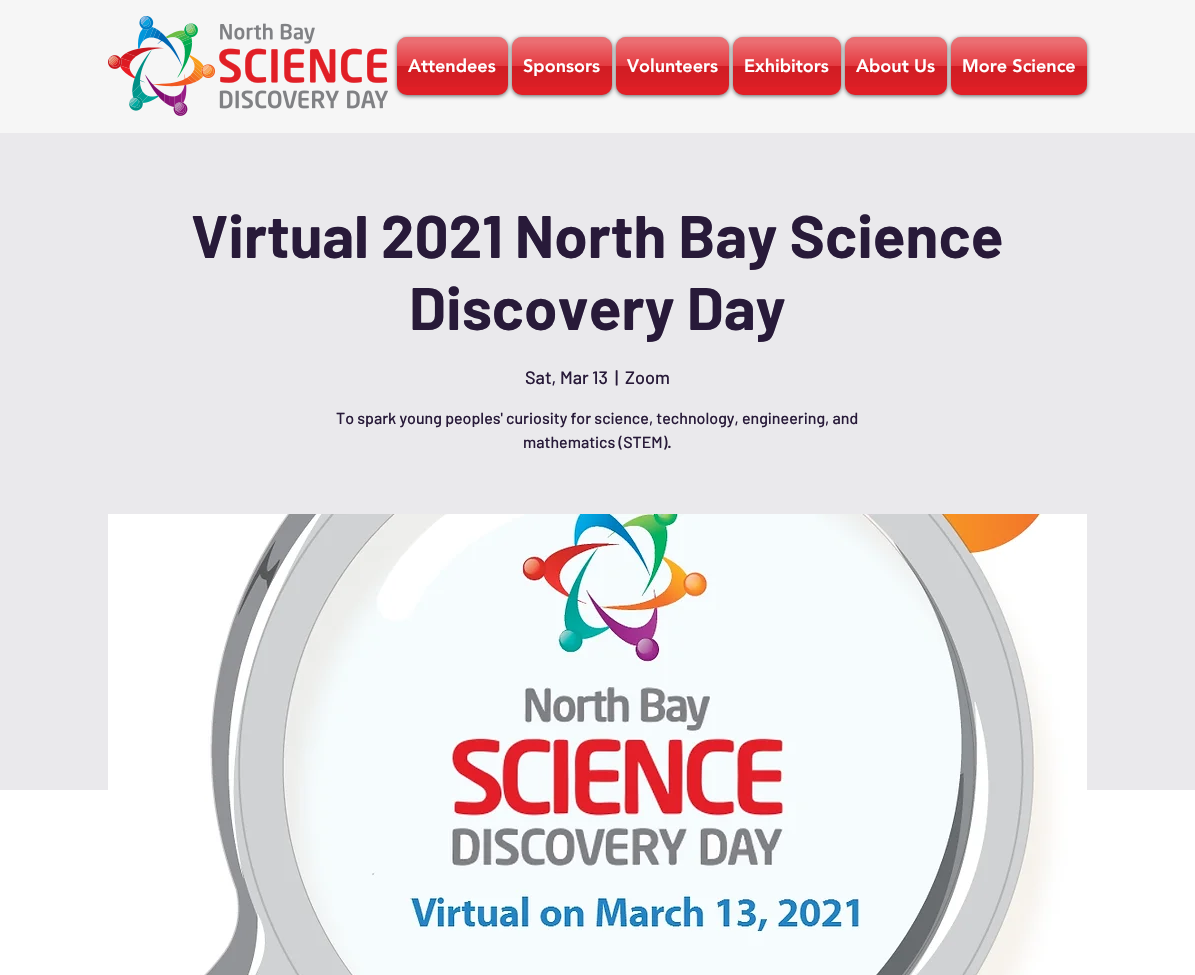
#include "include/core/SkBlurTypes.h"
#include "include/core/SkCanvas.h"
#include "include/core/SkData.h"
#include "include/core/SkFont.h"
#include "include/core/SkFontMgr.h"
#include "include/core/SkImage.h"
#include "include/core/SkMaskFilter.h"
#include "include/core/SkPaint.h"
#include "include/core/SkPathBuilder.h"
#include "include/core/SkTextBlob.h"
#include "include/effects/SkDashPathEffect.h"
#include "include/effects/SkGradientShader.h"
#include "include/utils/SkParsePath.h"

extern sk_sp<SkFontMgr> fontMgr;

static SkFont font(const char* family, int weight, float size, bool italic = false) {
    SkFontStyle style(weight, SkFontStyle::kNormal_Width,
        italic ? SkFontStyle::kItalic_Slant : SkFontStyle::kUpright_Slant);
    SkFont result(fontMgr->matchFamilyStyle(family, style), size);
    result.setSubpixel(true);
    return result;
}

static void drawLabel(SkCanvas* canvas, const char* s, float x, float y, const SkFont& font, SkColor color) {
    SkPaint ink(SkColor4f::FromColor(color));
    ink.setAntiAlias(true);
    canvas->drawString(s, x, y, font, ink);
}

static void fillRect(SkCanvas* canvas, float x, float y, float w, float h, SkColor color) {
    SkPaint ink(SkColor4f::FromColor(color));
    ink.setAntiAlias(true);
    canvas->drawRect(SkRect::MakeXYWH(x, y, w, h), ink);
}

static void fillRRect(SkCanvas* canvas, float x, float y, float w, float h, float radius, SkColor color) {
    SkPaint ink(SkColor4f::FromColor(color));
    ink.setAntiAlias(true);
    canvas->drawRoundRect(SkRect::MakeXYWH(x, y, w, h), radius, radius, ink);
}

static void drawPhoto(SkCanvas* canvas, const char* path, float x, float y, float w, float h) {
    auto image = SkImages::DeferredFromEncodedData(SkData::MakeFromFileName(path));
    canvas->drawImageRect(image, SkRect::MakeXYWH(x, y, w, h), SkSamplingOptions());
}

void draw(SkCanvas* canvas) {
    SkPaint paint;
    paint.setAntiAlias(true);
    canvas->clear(0xFFF6F6F6);
    drawPhoto(canvas, "assets/img1.png", 108, 16, 280, 100);
    paint.setColor(0x99000000);
    paint.setMaskFilter(SkMaskFilter::MakeBlur(kNormal_SkBlurStyle, 2));
    canvas->drawRoundRect(SkRect::MakeXYWH(397, 38, 111, 58), 10, 10, paint);
    paint.setMaskFilter(nullptr);
    fillRRect(canvas, 397, 37, 111, 58, 10, 0xFFE11F26);
    drawPhoto(canvas, "assets/img2.png", 397, 37, 111, 50);
    SkFont font1 = font("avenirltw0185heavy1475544", 900, 18);
    drawLabel(canvas, "Attendees", 408, 72, font1, 0xFFFFFFFF);
    paint.setMaskFilter(SkMaskFilter::MakeBlur(kNormal_SkBlurStyle, 2));
    canvas->drawRoundRect(SkRect::MakeXYWH(512, 38, 100, 58), 10, 10, paint);
    paint.setMaskFilter(nullptr);
    fillRRect(canvas, 512, 37, 100, 58, 10, 0xFFE11F26);
    drawPhoto(canvas, "assets/img3.png", 512, 37, 100, 50);
    drawLabel(canvas, "Sponsors", 523, 72, font1, 0xFFFFFFFF);
    paint.setMaskFilter(SkMaskFilter::MakeBlur(kNormal_SkBlurStyle, 2));
    canvas->drawRoundRect(SkRect::MakeXYWH(616, 38, 113, 58), 10, 10, paint);
    paint.setMaskFilter(nullptr);
    fillRRect(canvas, 616, 37, 113, 58, 10, 0xFFE11F26);
    drawPhoto(canvas, "assets/img4.png", 616, 37, 113, 50);
    drawLabel(canvas, "Volunteers", 627, 72, font1, 0xFFFFFFFF);
    paint.setMaskFilter(SkMaskFilter::MakeBlur(kNormal_SkBlurStyle, 2));
    canvas->drawRoundRect(SkRect::MakeXYWH(733, 38, 108, 58), 10, 10, paint);
    paint.setMaskFilter(nullptr);
    fillRRect(canvas, 733, 37, 108, 58, 10, 0xFFE11F26);
    drawPhoto(canvas, "assets/img5.png", 733, 37, 108, 50);
    drawLabel(canvas, "Exhibitors", 744, 72, font1, 0xFFFFFFFF);
    paint.setMaskFilter(SkMaskFilter::MakeBlur(kNormal_SkBlurStyle, 2));
    canvas->drawRoundRect(SkRect::MakeXYWH(845, 38, 102, 58), 10, 10, paint);
    paint.setMaskFilter(nullptr);
    fillRRect(canvas, 845, 37, 102, 58, 10, 0xFFE11F26);
    drawPhoto(canvas, "assets/img6.png", 845, 37, 102, 50);
    drawLabel(canvas, "About Us", 856, 72, font1, 0xFFFFFFFF);
    paint.setMaskFilter(SkMaskFilter::MakeBlur(kNormal_SkBlurStyle, 2));
    canvas->drawRoundRect(SkRect::MakeXYWH(951, 38, 136, 58), 10, 10, paint);
    paint.setMaskFilter(nullptr);
    fillRRect(canvas, 951, 37, 136, 58, 10, 0xFFE11F26);
    drawPhoto(canvas, "assets/img7.png", 951, 37, 136, 50);
    drawLabel(canvas, "More Science", 962, 72, font1, 0xFFFFFFFF);
    fillRect(canvas, 0, 133, 1195, 657, 0xFFEAE9EC);
    SkFont font2 = font("Barlow", 700, 60);
    drawLabel(canvas, "Virtual 2021 North Bay Science", 191, 258, font2, 0xFF281A39);
    drawLabel(canvas, "Discovery Day", 409, 330, font2, 0xFF281A39);
    SkFont font3 = font("Barlow", 500, 18);
    drawLabel(canvas, "Sat, Mar 13", 525, 384, font3, 0xFF281A39);
    drawLabel(canvas, "|", 615, 384, font3, 0xFF281A39);
    drawLabel(canvas, "Zoom", 625, 384, font3, 0xFF281A39);
    SkFont font4 = font("Barlow", 500, 16);
    drawLabel(canvas, "To spark young peoples' curiosity for science, technology, engineering, and", 336, 424, font4, 0xFF281A39);
    drawLabel(canvas, "mathematics (STEM).", 523, 448, font4, 0xFF281A39);
    fillRect(canvas, 0, 790, 1195, 185, 0xFFFFFFFF);
    drawPhoto(canvas, "assets/img8.png", 108, 514, 979, 461);
}
